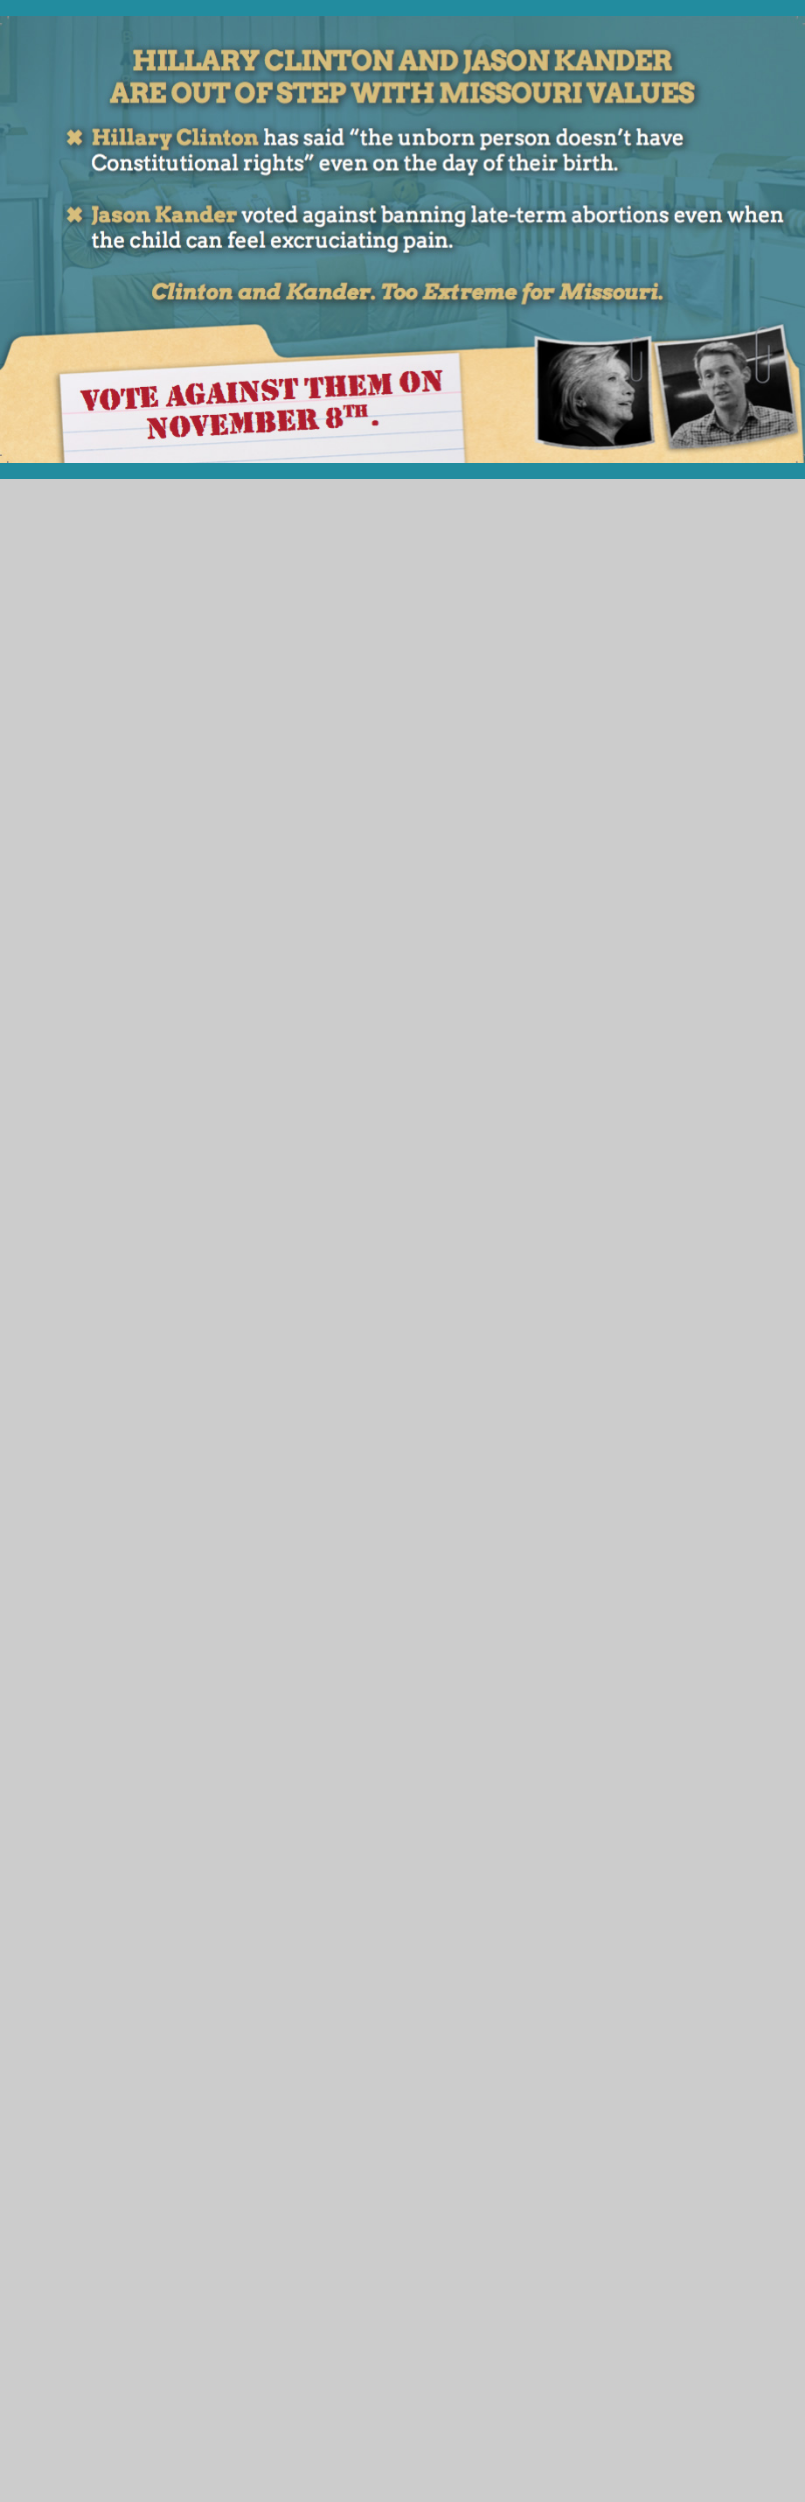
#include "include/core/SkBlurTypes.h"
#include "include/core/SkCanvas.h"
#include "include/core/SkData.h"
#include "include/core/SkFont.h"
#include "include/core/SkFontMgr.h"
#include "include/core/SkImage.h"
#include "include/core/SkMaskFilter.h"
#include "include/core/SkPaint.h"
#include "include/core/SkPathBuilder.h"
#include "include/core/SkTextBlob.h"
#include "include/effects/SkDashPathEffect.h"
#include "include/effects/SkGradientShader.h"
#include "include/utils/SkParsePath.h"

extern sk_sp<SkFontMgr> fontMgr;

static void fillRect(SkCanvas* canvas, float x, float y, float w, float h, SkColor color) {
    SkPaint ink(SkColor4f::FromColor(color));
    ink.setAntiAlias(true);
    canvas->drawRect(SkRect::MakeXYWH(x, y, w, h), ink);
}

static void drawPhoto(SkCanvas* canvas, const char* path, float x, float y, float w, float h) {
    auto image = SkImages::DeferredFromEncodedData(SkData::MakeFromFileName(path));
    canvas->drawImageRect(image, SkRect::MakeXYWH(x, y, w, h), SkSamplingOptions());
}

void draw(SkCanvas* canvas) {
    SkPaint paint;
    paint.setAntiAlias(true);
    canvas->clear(0xFFCCCCCC);
    fillRect(canvas, 0, 0, 805, 479, 0xFF228C9F);
    drawPhoto(canvas, "assets/img1.png", 0, 16, 805, 447);
}
